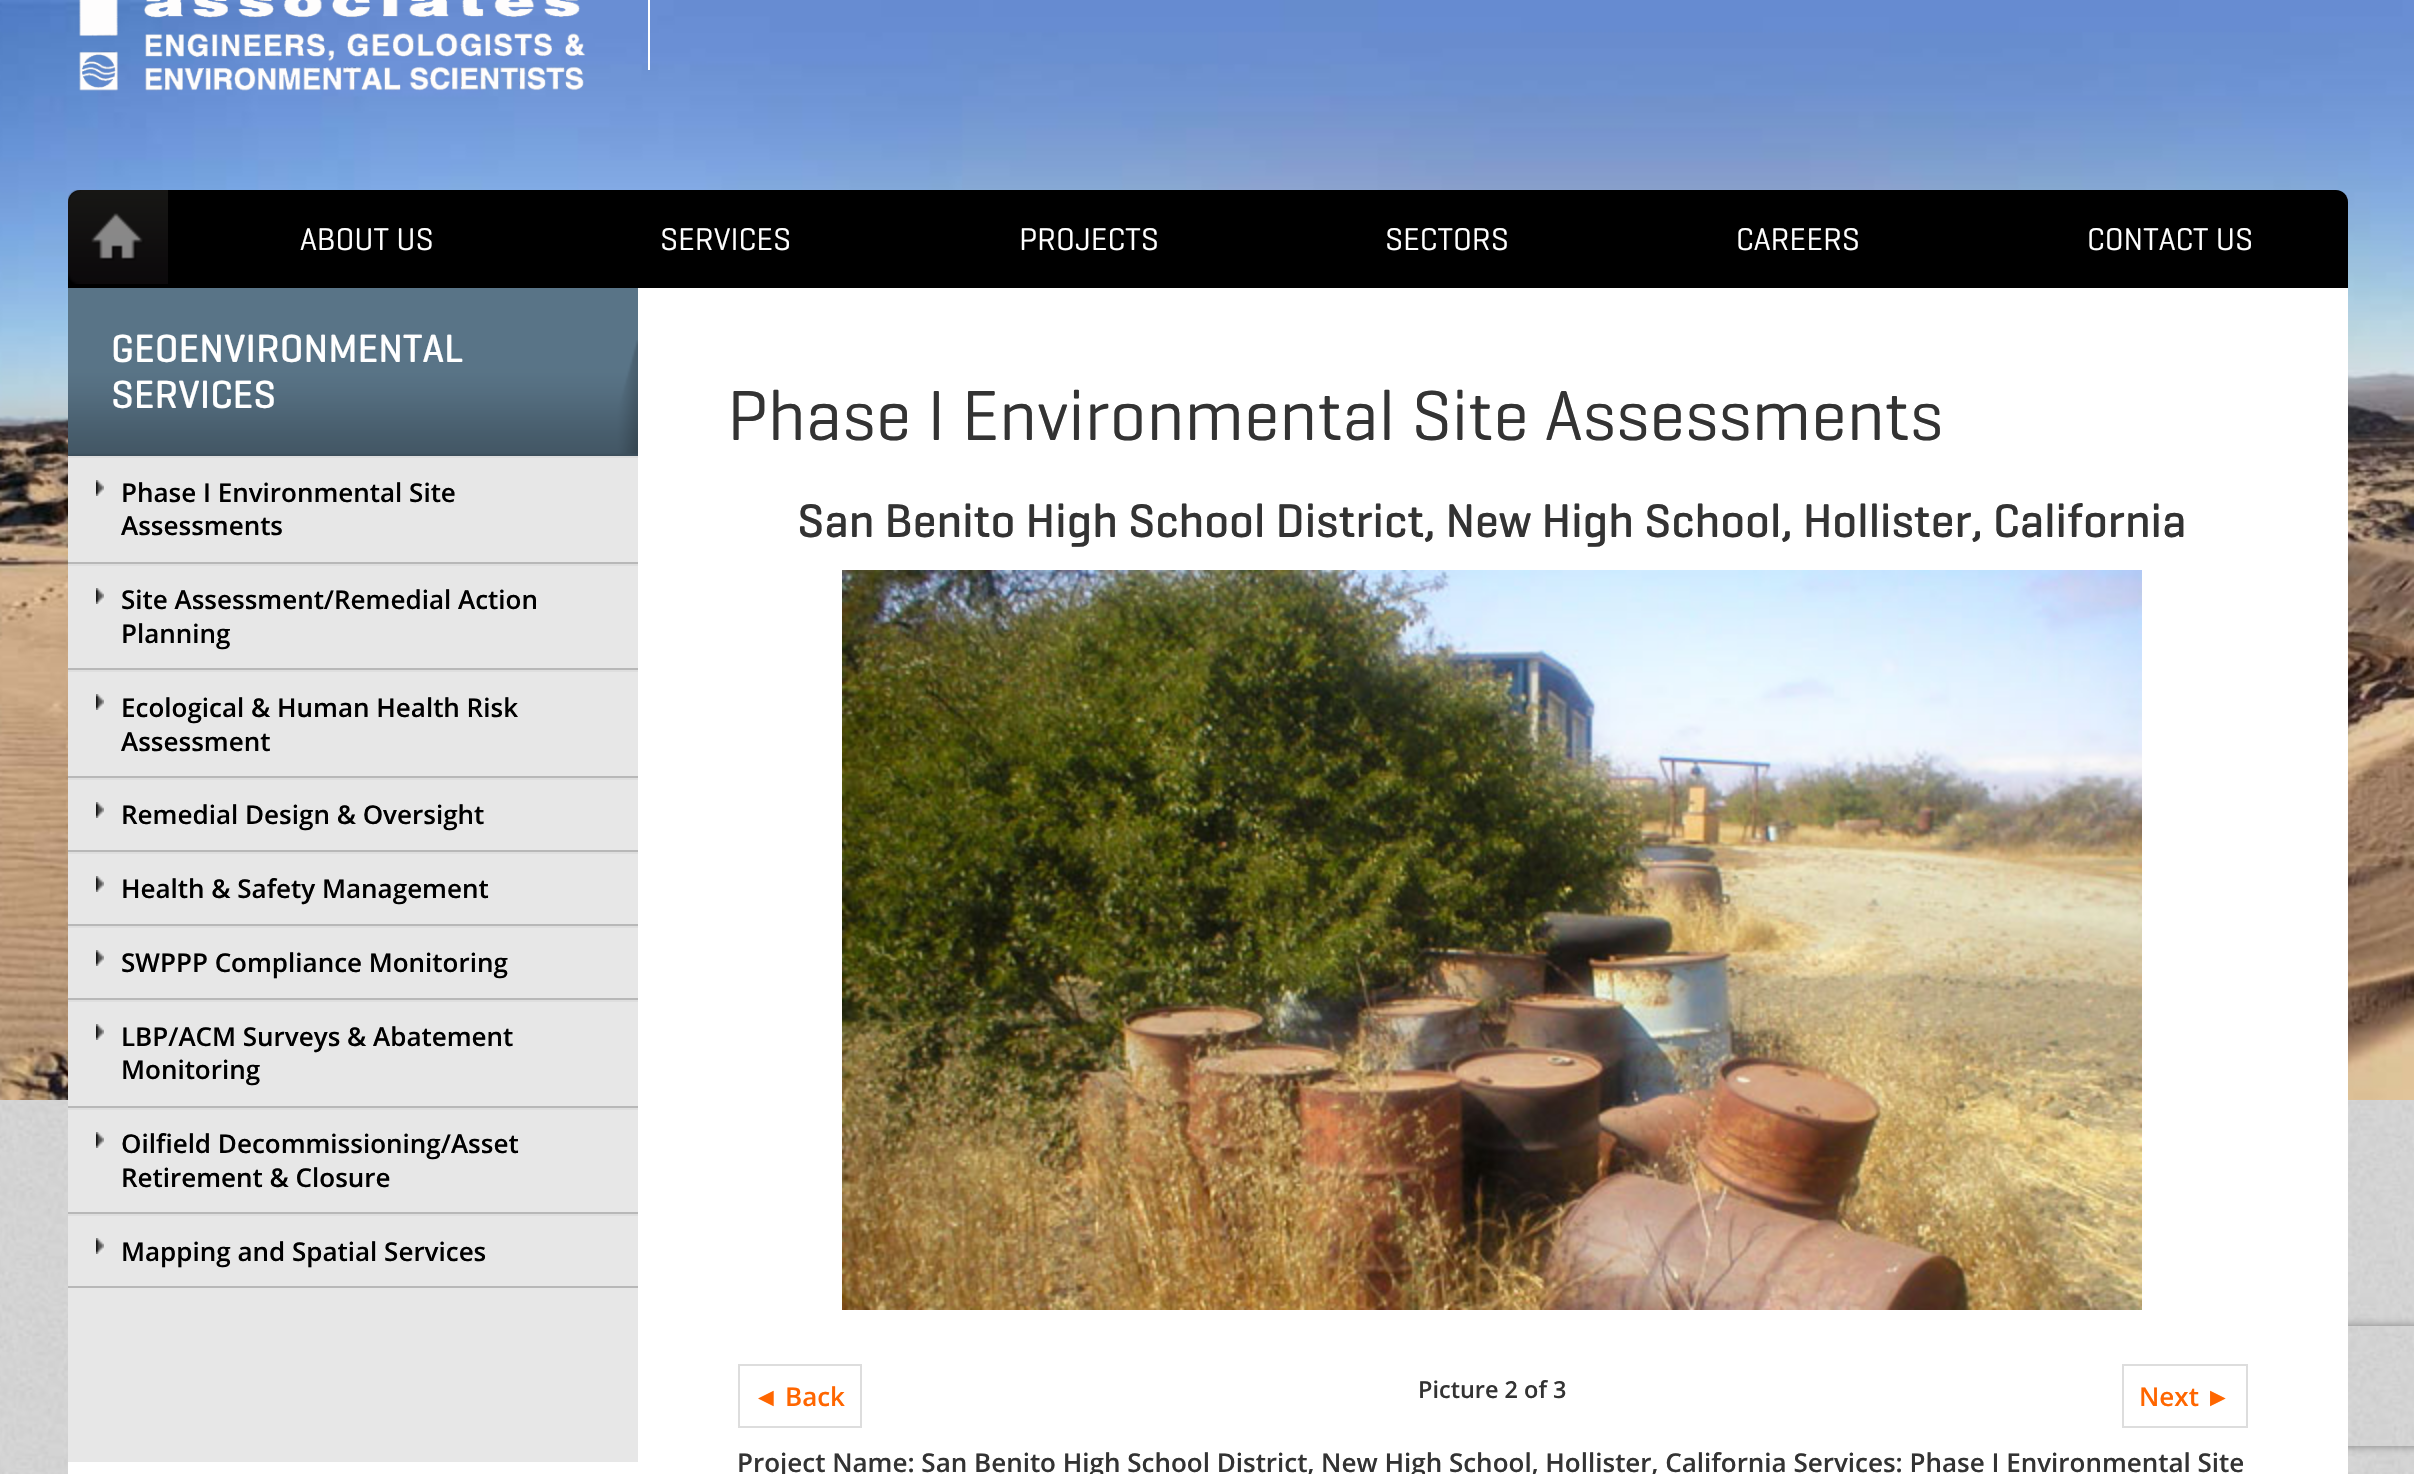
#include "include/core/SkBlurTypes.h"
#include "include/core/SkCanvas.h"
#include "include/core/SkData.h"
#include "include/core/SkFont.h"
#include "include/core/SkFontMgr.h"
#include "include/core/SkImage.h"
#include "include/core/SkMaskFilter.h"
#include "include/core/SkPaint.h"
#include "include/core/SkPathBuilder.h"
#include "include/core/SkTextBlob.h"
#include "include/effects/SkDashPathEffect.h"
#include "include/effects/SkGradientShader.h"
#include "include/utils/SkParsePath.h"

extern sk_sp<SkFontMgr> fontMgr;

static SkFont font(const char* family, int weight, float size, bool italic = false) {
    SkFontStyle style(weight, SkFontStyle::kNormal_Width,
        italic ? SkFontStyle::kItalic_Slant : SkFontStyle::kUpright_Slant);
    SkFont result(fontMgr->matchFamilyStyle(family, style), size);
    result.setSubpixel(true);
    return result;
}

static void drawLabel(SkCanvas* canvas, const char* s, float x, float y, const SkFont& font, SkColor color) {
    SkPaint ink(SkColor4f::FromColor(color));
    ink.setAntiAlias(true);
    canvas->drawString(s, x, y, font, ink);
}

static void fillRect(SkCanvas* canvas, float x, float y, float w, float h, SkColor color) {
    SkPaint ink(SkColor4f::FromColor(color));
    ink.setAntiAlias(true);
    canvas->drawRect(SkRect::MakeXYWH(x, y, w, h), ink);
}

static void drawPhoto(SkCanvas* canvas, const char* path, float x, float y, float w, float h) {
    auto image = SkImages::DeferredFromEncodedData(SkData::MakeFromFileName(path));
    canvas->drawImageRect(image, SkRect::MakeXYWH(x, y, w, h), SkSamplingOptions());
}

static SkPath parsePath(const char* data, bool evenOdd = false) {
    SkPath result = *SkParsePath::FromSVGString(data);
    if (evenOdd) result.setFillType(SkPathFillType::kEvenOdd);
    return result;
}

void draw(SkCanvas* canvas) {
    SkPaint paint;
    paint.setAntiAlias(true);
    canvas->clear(0xFFFFFFFF);
    drawPhoto(canvas, "assets/img1.png", 0, 0, 2414, 1474);
    drawPhoto(canvas, "assets/img2.png", 79, 0, 507, 91);
    fillRect(canvas, 648, 0, 2, 70, 0xFFFFFFFF);
    paint.setColor(0xFF000000);
    canvas->drawPath(parsePath("M80 190H2336C2342.5 190 2348 195.5 2348 202V288H68V202C68 195.5 73.5 190 80 190Z"), paint);
    drawPhoto(canvas, "assets/img3.png", 68, 190, 100, 94);
    SkFont font1 = font("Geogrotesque", 400, 32);
    drawLabel(canvas, "ABOUT US", 300, 250, font1, 0xFFFFFFFF);
    drawLabel(canvas, "SERVICES", 660, 250, font1, 0xFFFFFFFF);
    drawLabel(canvas, "PROJECTS", 1019, 250, font1, 0xFFFFFFFF);
    drawLabel(canvas, "SECTORS", 1385, 250, font1, 0xFFFFFFFF);
    drawLabel(canvas, "CAREERS", 1736, 250, font1, 0xFFFFFFFF);
    drawLabel(canvas, "CONTACT US", 2087, 250, font1, 0xFFFFFFFF);
    canvas->save();
    canvas->clipPath(parsePath("M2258 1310H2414V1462H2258ZM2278 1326H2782C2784 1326 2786 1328 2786 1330V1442C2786 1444 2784 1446 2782 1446H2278C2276 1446 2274 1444 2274 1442V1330C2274 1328 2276 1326 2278 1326Z", true), true);
    paint.setColor(0xFF808080);
    paint.setMaskFilter(SkMaskFilter::MakeBlur(kNormal_SkBlurStyle, 5));
    canvas->drawRoundRect(SkRect::MakeXYWH(2274, 1326, 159, 120), 4, 4, paint);
    paint.setMaskFilter(nullptr);
    canvas->restore();
    fillRect(canvas, 68, 288, 2280, 1186, 0xFFFFFFFF);
    fillRect(canvas, 68, 458, 570, 1004, 0xFFE7E7E7);
    fillRect(canvas, 68, 288, 570, 168, 0xFF597487);
    drawPhoto(canvas, "assets/img4.png", 68, 340, 570, 116);
    SkFont font2 = font("Geogrotesque", 500, 40);
    drawLabel(canvas, "GEOENVIRONMENTAL", 111, 362, font2, 0xFFFFFFFF);
    drawLabel(canvas, "SERVICES", 111, 408, font2, 0xFFFFFFFF);
    drawPhoto(canvas, "assets/img5.png", 96, 480, 8, 16);
    fillRect(canvas, 68, 456, 570, 2, 0xFFDEDEDE);
    fillRect(canvas, 68, 562, 570, 2, 0xFFB8B8B8);
    SkFont font3 = font("Open Sans", 600, 26);
    drawLabel(canvas, "Phase I Environmental Site", 121, 502, font3, 0xFF000000);
    drawLabel(canvas, "Assessments", 121, 535, font3, 0xFF000000);
    drawPhoto(canvas, "assets/img5.png", 96, 588, 8, 16);
    fillRect(canvas, 68, 564, 570, 2, 0xFFDEDEDE);
    fillRect(canvas, 68, 668, 570, 2, 0xFFB8B8B8);
    drawLabel(canvas, "Site Assessment/Remedial Action", 121, 609, font3, 0xFF000000);
    drawLabel(canvas, "Planning", 121, 643, font3, 0xFF000000);
    drawPhoto(canvas, "assets/img5.png", 96, 694, 8, 16);
    fillRect(canvas, 68, 670, 570, 2, 0xFFDEDEDE);
    fillRect(canvas, 68, 776, 570, 2, 0xFFB8B8B8);
    drawLabel(canvas, "Ecological & Human Health Risk", 121, 717, font3, 0xFF000000);
    drawLabel(canvas, "Assessment", 121, 751, font3, 0xFF000000);
    drawPhoto(canvas, "assets/img5.png", 96, 802, 8, 16);
    fillRect(canvas, 68, 778, 570, 2, 0xFFDEDEDE);
    fillRect(canvas, 68, 850, 570, 2, 0xFFB8B8B8);
    drawLabel(canvas, "Remedial Design & Oversight", 121, 824, font3, 0xFF000000);
    drawPhoto(canvas, "assets/img5.png", 96, 876, 8, 16);
    fillRect(canvas, 68, 852, 570, 2, 0xFFDEDEDE);
    fillRect(canvas, 68, 924, 570, 2, 0xFFB8B8B8);
    drawLabel(canvas, "Health & Safety Management", 121, 898, font3, 0xFF000000);
    drawPhoto(canvas, "assets/img5.png", 96, 950, 8, 16);
    fillRect(canvas, 68, 926, 570, 2, 0xFFDEDEDE);
    fillRect(canvas, 68, 998, 570, 2, 0xFFB8B8B8);
    drawLabel(canvas, "SWPPP Compliance Monitoring", 121, 972, font3, 0xFF000000);
    drawPhoto(canvas, "assets/img5.png", 96, 1024, 8, 16);
    fillRect(canvas, 68, 1000, 570, 2, 0xFFDEDEDE);
    fillRect(canvas, 68, 1106, 570, 2, 0xFFB8B8B8);
    drawLabel(canvas, "LBP/ACM Surveys & Abatement", 121, 1046, font3, 0xFF000000);
    drawLabel(canvas, "Monitoring", 121, 1079, font3, 0xFF000000);
    drawPhoto(canvas, "assets/img5.png", 96, 1132, 8, 16);
    fillRect(canvas, 68, 1108, 570, 2, 0xFFDEDEDE);
    fillRect(canvas, 68, 1212, 570, 2, 0xFFB8B8B8);
    drawLabel(canvas, "Oilfield Decommissioning/Asset", 121, 1153, font3, 0xFF000000);
    drawLabel(canvas, "Retirement & Closure", 121, 1187, font3, 0xFF000000);
    drawPhoto(canvas, "assets/img5.png", 96, 1238, 8, 16);
    fillRect(canvas, 68, 1214, 570, 2, 0xFFDEDEDE);
    fillRect(canvas, 68, 1286, 570, 2, 0xFFB8B8B8);
    drawLabel(canvas, "Mapping and Spatial Services", 121, 1261, font3, 0xFF000000);
    SkFont font4 = font("Geogrotesque", 400, 72);
    drawLabel(canvas, "Phase I Environmental Site Assessments", 727, 440, font4, 0xFF333333);
    SkFont font5 = font("Geogrotesque", 500, 48);
    drawLabel(canvas, "San Benito High School District, New High School, Hollister, California", 797, 537, font5, 0xFF333333);
    drawPhoto(canvas, "assets/img6.png", 842, 570, 1300, 740);
    paint.setStroke(true);
    paint.setStrokeWidth(2);
    paint.setColor(0xFFDDDDDD);
    canvas->drawRect(SkRect::MakeXYWH(739, 1365, 122, 62), paint);
    SkFont font6 = font("Liberation Sans", 400, 26);
    drawLabel(canvas, "◄", 753, 1406, font6, 0xFFFF6600);
    drawLabel(canvas, "Back", 785, 1406, font3, 0xFFFF6600);
    SkFont font7 = font("Open Sans", 600, 23.5f);
    drawLabel(canvas, "Picture 2 of 3", 1418, 1398, font7, 0xFF333333);
    canvas->drawRect(SkRect::MakeXYWH(2123, 1365, 124, 62), paint);
    drawLabel(canvas, "Next", 2139, 1406, font3, 0xFFFF6600);
    drawLabel(canvas, "►", 2205, 1406, font6, 0xFFFF6600);
    drawLabel(canvas, "Project Name: San Benito High School District, New High School, Hollister, California Services: Phase I Environmental Site", 737, 1472, font3, 0xFF333333);
}
